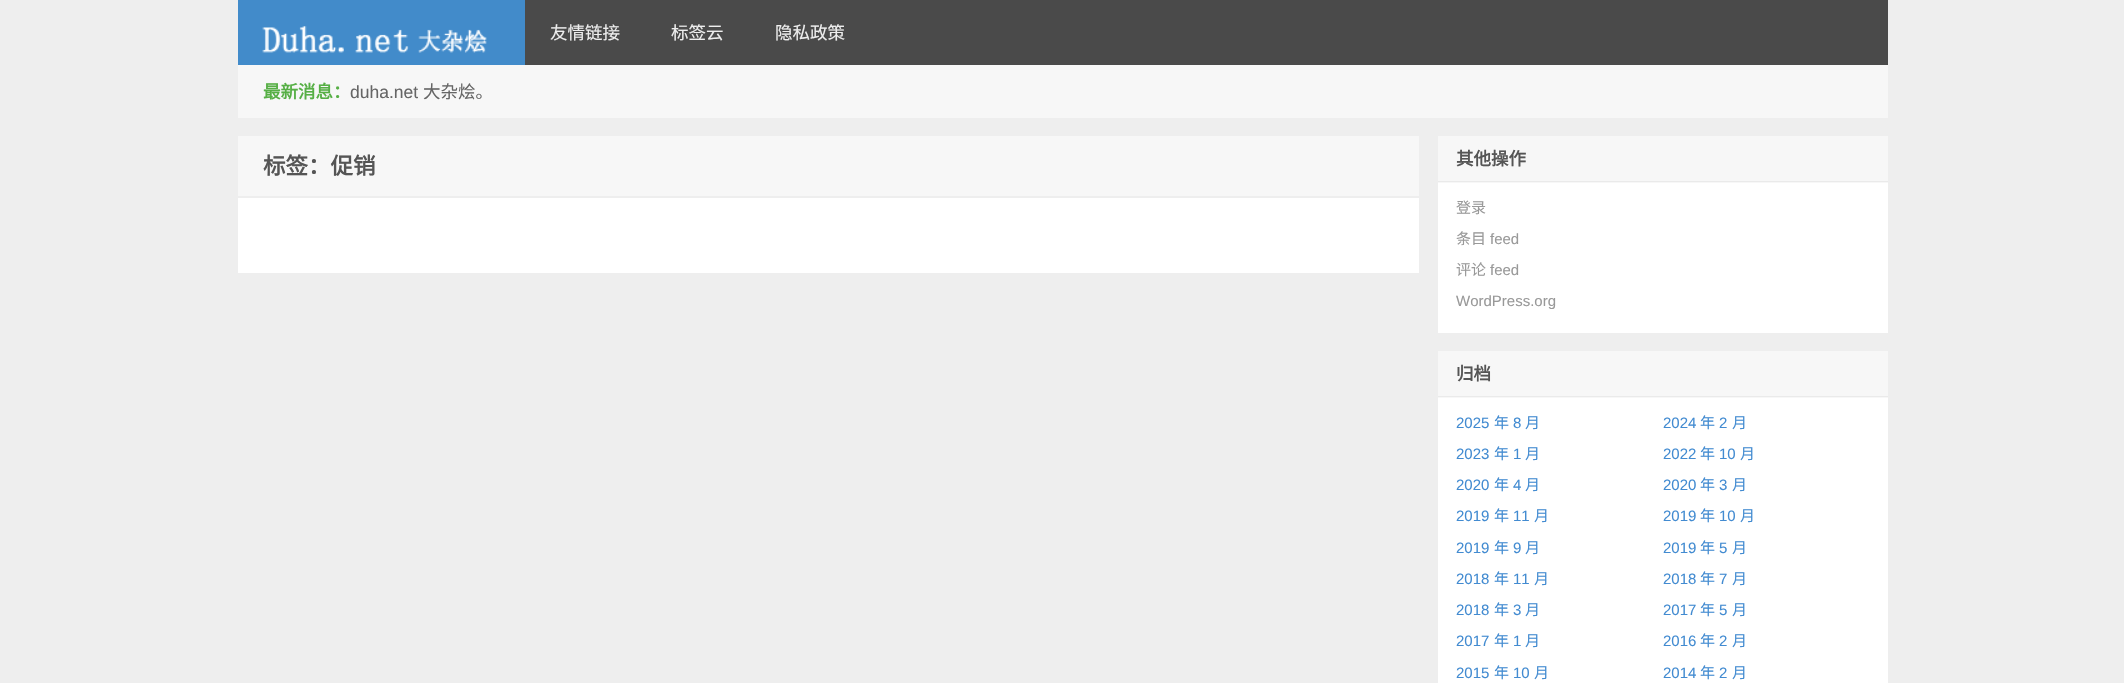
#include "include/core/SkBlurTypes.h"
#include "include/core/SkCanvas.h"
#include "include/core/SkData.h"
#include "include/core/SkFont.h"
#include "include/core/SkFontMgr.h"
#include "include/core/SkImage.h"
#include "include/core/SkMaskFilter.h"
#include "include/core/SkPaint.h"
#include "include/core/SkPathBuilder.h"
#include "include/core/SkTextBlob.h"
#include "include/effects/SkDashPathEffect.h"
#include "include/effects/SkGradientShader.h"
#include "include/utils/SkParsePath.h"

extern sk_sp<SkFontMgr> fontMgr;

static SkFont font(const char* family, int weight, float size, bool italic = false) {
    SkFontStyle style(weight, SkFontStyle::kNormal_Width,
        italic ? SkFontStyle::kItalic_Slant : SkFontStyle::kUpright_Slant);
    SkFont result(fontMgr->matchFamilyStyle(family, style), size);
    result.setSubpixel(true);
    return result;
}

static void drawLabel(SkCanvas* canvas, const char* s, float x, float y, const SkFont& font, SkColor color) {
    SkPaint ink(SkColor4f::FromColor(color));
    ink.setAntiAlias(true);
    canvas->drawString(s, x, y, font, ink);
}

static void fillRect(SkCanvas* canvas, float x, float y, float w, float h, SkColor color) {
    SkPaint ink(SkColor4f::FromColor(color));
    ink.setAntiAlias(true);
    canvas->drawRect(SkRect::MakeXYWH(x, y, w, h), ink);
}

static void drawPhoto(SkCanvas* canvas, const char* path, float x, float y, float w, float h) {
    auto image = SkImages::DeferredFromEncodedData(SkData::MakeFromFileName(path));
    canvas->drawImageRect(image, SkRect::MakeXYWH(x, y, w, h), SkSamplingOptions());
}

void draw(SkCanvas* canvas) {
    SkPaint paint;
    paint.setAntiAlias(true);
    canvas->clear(0xFFEEEEEE);
    fillRect(canvas, 525, 0, 1363, 65, 0xFF4A4A4A);
    fillRect(canvas, 238, 0, 287, 65, 0xFF428BCA);
    drawPhoto(canvas, "assets/img1.png", 262, 26, 225, 27);
    SkFont font1 = font("Noto Sans CJK SC", 400, 17.5f);
    drawLabel(canvas, "友情链接", 550, 39, font1, 0xFFEEEEEE);
    drawLabel(canvas, "标签云", 671, 39, font1, 0xFFEEEEEE);
    drawLabel(canvas, "隐私政策", 775, 39, font1, 0xFFEEEEEE);
    fillRect(canvas, 238, 65, 1650, 53, 0xFFF7F7F7);
    SkFont font2 = font("Noto Sans CJK SC", 700, 17.5f);
    drawLabel(canvas, "最新消息：", 263, 98, font2, 0xFF56AF45);
    SkFont font3 = font("Liberation Sans", 400, 17.5f);
    drawLabel(canvas, "duha.net", 350, 98, font3, 0xFF666666);
    drawLabel(canvas, "大杂烩。", 423, 98, font1, 0xFF666666);
    fillRect(canvas, 238, 136, 1181, 60, 0xFFF7F7F7);
    SkFont font4 = font("Noto Sans CJK SC", 700, 22.5f);
    drawLabel(canvas, "标签：促销", 263, 174, font4, 0xFF555555);
    fillRect(canvas, 238, 198, 1181, 75, 0xFFFFFFFF);
    fillRect(canvas, 1438, 183, 450, 150, 0xFFFFFFFF);
    fillRect(canvas, 1438, 136, 450, 47, 0xFFF7F7F7);
    fillRect(canvas, 1438, 181, 450, 1, 0xFFEAEAEA);
    drawLabel(canvas, "其他操作", 1456, 165, font2, 0xFF555555);
    SkFont font5 = font("Noto Sans CJK SC", 400, 15);
    drawLabel(canvas, "登录", 1456, 213, font5, 0xFF999999);
    drawLabel(canvas, "条目", 1456, 244, font5, 0xFF999999);
    SkFont font6 = font("Liberation Sans", 400, 15);
    drawLabel(canvas, "feed", 1490, 244, font6, 0xFF999999);
    drawLabel(canvas, "评论", 1456, 275, font5, 0xFF999999);
    drawLabel(canvas, "feed", 1490, 275, font6, 0xFF999999);
    drawLabel(canvas, "WordPress.org", 1456, 306, font6, 0xFF999999);
    fillRect(canvas, 1438, 398, 450, 285, 0xFFFFFFFF);
    fillRect(canvas, 1438, 351, 450, 47, 0xFFF7F7F7);
    fillRect(canvas, 1438, 396, 450, 1, 0xFFEAEAEA);
    drawLabel(canvas, "归档", 1456, 380, font2, 0xFF555555);
    drawLabel(canvas, "2025", 1456, 428, font6, 0xFF428BD1);
    drawLabel(canvas, "年", 1494, 428, font5, 0xFF428BD1);
    drawLabel(canvas, "8", 1513, 428, font6, 0xFF428BD1);
    drawLabel(canvas, "月", 1525, 428, font5, 0xFF428BD1);
    drawLabel(canvas, "2024", 1663, 428, font6, 0xFF428BD1);
    drawLabel(canvas, "年", 1700, 428, font5, 0xFF428BD1);
    drawLabel(canvas, "2", 1719, 428, font6, 0xFF428BD1);
    drawLabel(canvas, "月", 1732, 428, font5, 0xFF428BD1);
    drawLabel(canvas, "2023", 1456, 459, font6, 0xFF428BD1);
    drawLabel(canvas, "年", 1494, 459, font5, 0xFF428BD1);
    drawLabel(canvas, "1", 1513, 459, font6, 0xFF428BD1);
    drawLabel(canvas, "月", 1525, 459, font5, 0xFF428BD1);
    drawLabel(canvas, "2022", 1663, 459, font6, 0xFF428BD1);
    drawLabel(canvas, "年", 1700, 459, font5, 0xFF428BD1);
    drawLabel(canvas, "10", 1719, 459, font6, 0xFF428BD1);
    drawLabel(canvas, "月", 1740, 459, font5, 0xFF428BD1);
    drawLabel(canvas, "2020", 1456, 490, font6, 0xFF428BD1);
    drawLabel(canvas, "年", 1494, 490, font5, 0xFF428BD1);
    drawLabel(canvas, "4", 1513, 490, font6, 0xFF428BD1);
    drawLabel(canvas, "月", 1525, 490, font5, 0xFF428BD1);
    drawLabel(canvas, "2020", 1663, 490, font6, 0xFF428BD1);
    drawLabel(canvas, "年", 1700, 490, font5, 0xFF428BD1);
    drawLabel(canvas, "3", 1719, 490, font6, 0xFF428BD1);
    drawLabel(canvas, "月", 1732, 490, font5, 0xFF428BD1);
    drawLabel(canvas, "2019", 1456, 521, font6, 0xFF428BD1);
    drawLabel(canvas, "年", 1494, 521, font5, 0xFF428BD1);
    drawLabel(canvas, "11", 1513, 521, font6, 0xFF428BD1);
    drawLabel(canvas, "月", 1534, 521, font5, 0xFF428BD1);
    drawLabel(canvas, "2019", 1663, 521, font6, 0xFF428BD1);
    drawLabel(canvas, "年", 1700, 521, font5, 0xFF428BD1);
    drawLabel(canvas, "10", 1719, 521, font6, 0xFF428BD1);
    drawLabel(canvas, "月", 1740, 521, font5, 0xFF428BD1);
    drawLabel(canvas, "2019", 1456, 553, font6, 0xFF428BD1);
    drawLabel(canvas, "年", 1494, 553, font5, 0xFF428BD1);
    drawLabel(canvas, "9", 1513, 553, font6, 0xFF428BD1);
    drawLabel(canvas, "月", 1525, 553, font5, 0xFF428BD1);
    drawLabel(canvas, "2019", 1663, 553, font6, 0xFF428BD1);
    drawLabel(canvas, "年", 1700, 553, font5, 0xFF428BD1);
    drawLabel(canvas, "5", 1719, 553, font6, 0xFF428BD1);
    drawLabel(canvas, "月", 1732, 553, font5, 0xFF428BD1);
    drawLabel(canvas, "2018", 1456, 584, font6, 0xFF428BD1);
    drawLabel(canvas, "年", 1494, 584, font5, 0xFF428BD1);
    drawLabel(canvas, "11", 1513, 584, font6, 0xFF428BD1);
    drawLabel(canvas, "月", 1534, 584, font5, 0xFF428BD1);
    drawLabel(canvas, "2018", 1663, 584, font6, 0xFF428BD1);
    drawLabel(canvas, "年", 1700, 584, font5, 0xFF428BD1);
    drawLabel(canvas, "7", 1719, 584, font6, 0xFF428BD1);
    drawLabel(canvas, "月", 1732, 584, font5, 0xFF428BD1);
    drawLabel(canvas, "2018", 1456, 615, font6, 0xFF428BD1);
    drawLabel(canvas, "年", 1494, 615, font5, 0xFF428BD1);
    drawLabel(canvas, "3", 1513, 615, font6, 0xFF428BD1);
    drawLabel(canvas, "月", 1525, 615, font5, 0xFF428BD1);
    drawLabel(canvas, "2017", 1663, 615, font6, 0xFF428BD1);
    drawLabel(canvas, "年", 1700, 615, font5, 0xFF428BD1);
    drawLabel(canvas, "5", 1719, 615, font6, 0xFF428BD1);
    drawLabel(canvas, "月", 1732, 615, font5, 0xFF428BD1);
    drawLabel(canvas, "2017", 1456, 646, font6, 0xFF428BD1);
    drawLabel(canvas, "年", 1494, 646, font5, 0xFF428BD1);
    drawLabel(canvas, "1", 1513, 646, font6, 0xFF428BD1);
    drawLabel(canvas, "月", 1525, 646, font5, 0xFF428BD1);
    drawLabel(canvas, "2016", 1663, 646, font6, 0xFF428BD1);
    drawLabel(canvas, "年", 1700, 646, font5, 0xFF428BD1);
    drawLabel(canvas, "2", 1719, 646, font6, 0xFF428BD1);
    drawLabel(canvas, "月", 1732, 646, font5, 0xFF428BD1);
    drawLabel(canvas, "2015", 1456, 678, font6, 0xFF428BD1);
    drawLabel(canvas, "年", 1494, 678, font5, 0xFF428BD1);
    drawLabel(canvas, "10", 1513, 678, font6, 0xFF428BD1);
    drawLabel(canvas, "月", 1534, 678, font5, 0xFF428BD1);
    drawLabel(canvas, "2014", 1663, 678, font6, 0xFF428BD1);
    drawLabel(canvas, "年", 1700, 678, font5, 0xFF428BD1);
    drawLabel(canvas, "2", 1719, 678, font6, 0xFF428BD1);
    drawLabel(canvas, "月", 1732, 678, font5, 0xFF428BD1);
}
